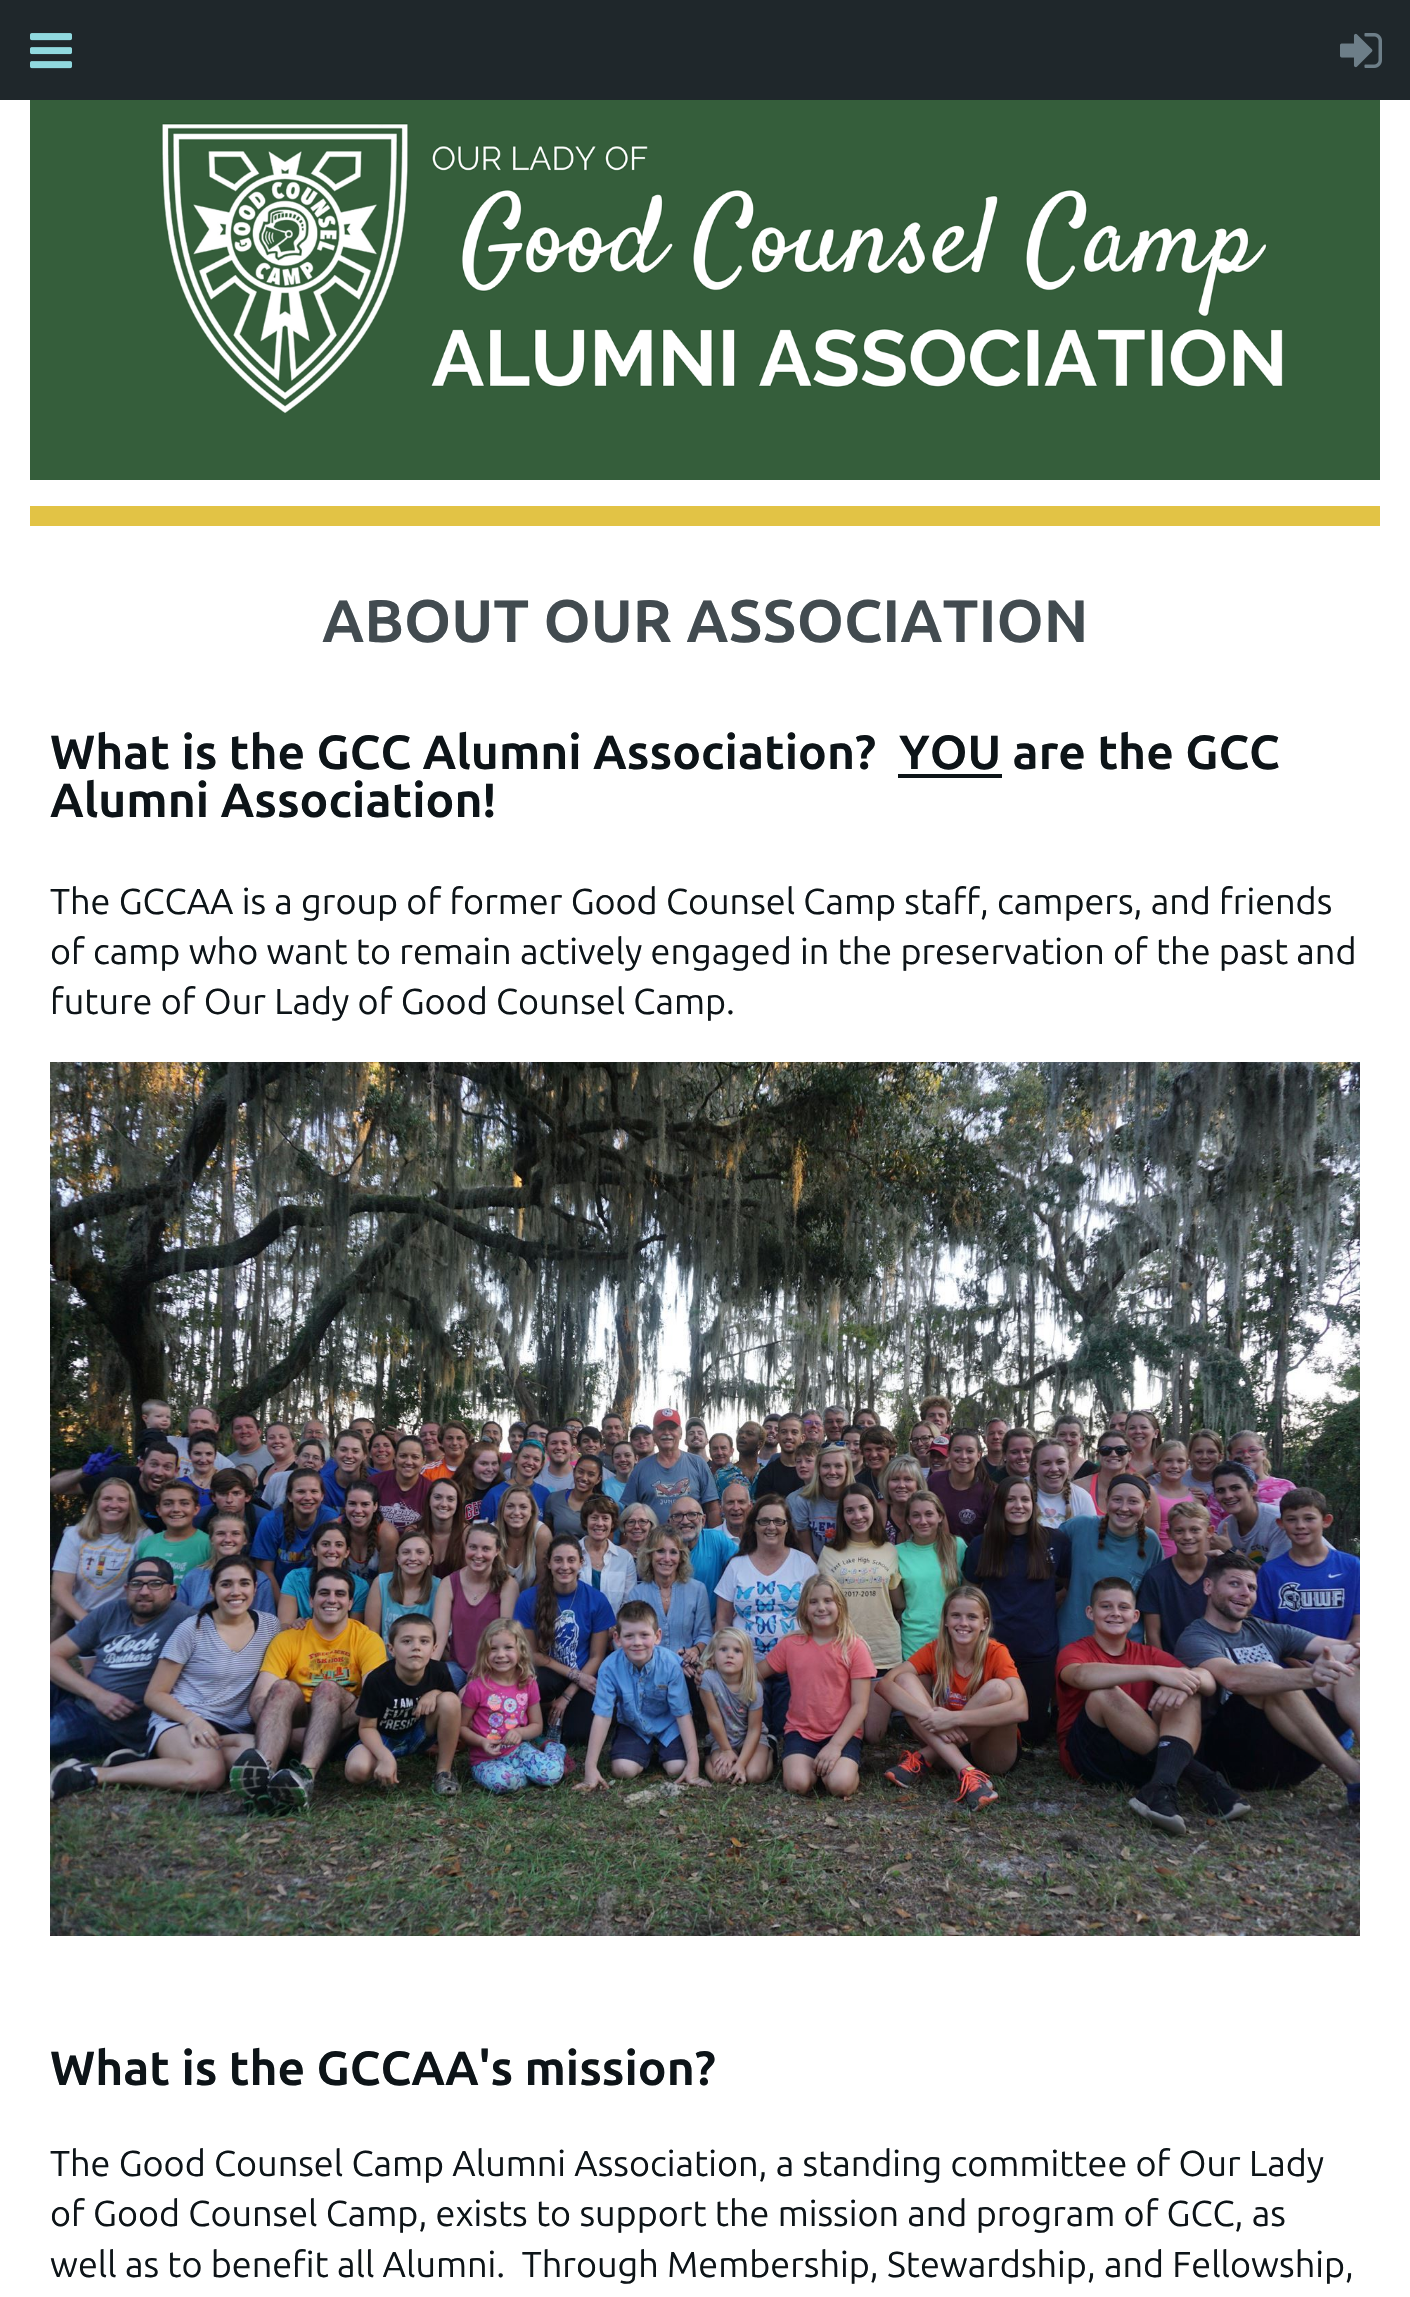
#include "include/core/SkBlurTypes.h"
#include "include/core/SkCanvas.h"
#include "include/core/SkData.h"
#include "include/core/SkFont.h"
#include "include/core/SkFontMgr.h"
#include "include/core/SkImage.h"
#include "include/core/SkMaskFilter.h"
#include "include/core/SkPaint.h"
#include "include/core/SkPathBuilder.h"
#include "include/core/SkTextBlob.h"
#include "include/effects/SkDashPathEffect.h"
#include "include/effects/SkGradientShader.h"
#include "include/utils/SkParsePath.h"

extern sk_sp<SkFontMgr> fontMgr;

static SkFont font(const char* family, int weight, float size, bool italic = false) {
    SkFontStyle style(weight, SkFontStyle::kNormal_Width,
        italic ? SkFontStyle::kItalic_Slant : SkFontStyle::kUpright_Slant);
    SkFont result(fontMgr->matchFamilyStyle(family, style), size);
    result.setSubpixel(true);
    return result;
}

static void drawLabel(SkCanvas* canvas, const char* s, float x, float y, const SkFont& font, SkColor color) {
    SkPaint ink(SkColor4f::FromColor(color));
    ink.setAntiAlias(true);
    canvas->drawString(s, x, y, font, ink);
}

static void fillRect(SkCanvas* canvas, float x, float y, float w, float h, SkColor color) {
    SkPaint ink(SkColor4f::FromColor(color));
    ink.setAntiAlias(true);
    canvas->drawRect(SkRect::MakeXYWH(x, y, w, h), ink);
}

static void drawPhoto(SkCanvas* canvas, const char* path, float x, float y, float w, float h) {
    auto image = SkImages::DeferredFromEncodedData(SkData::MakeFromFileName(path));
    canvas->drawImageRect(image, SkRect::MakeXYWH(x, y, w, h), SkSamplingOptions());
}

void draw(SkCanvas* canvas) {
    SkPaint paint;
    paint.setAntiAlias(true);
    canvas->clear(0xFFFFFFFF);
    fillRect(canvas, 0, 0, 1410, 100, 0xFF1F272B);
    drawPhoto(canvas, "assets/img1.png", 30, 33, 42, 36);
    drawPhoto(canvas, "assets/img2.png", 1340, 33, 42, 35);
    fillRect(canvas, 30, 100, 1350, 380, 0xFF355E3B);
    drawPhoto(canvas, "assets/img3.png", 161, 123, 1122, 290);
    fillRect(canvas, 30, 506, 1350, 20, 0xFFE2C345);
    SkFont font1 = font("Ubuntu", 700, 60);
    drawLabel(canvas, "ABOUT OUR ASSOCIATION", 322, 642, font1, 0xFF424B50);
    SkFont font2 = font("Ubuntu", 700, 48);
    drawLabel(canvas, "What is the GCC Alumni Association?", 50, 769, font2, 0xFF0D1418);
    drawLabel(canvas, "YOU are the GCC", 899, 769, font2, 0xFF0D1418);
    fillRect(canvas, 898, 774, 104, 4, 0xFF0D1418);
    drawLabel(canvas, "Alumni Association!", 50, 817, font2, 0xFF0D1418);
    SkFont font3 = font("Ubuntu", 400, 36);
    drawLabel(canvas, "The GCCAA is a group of former Good Counsel Camp staff, campers, and friends", 50, 914, font3, 0xFF0D1418);
    drawLabel(canvas, "of camp who want to remain actively engaged in the preservation of the past and", 50, 964, font3, 0xFF0D1418);
    drawLabel(canvas, "future of Our Lady of Good Counsel Camp.", 50, 1014, font3, 0xFF0D1418);
    drawPhoto(canvas, "assets/img4.png", 50, 1062, 1310, 874);
    drawLabel(canvas, "What is the GCCAA's mission?", 50, 2085, font2, 0xFF0D1418);
    drawLabel(canvas, "The Good Counsel Camp Alumni Association, a standing committee of Our Lady", 50, 2176, font3, 0xFF0D1418);
    drawLabel(canvas, "of Good Counsel Camp, exists to support the mission and program of GCC, as", 50, 2226, font3, 0xFF0D1418);
    drawLabel(canvas, "well as to benefit all Alumni.  Through Membership, Stewardship, and Fellowship,", 50, 2277, font3, 0xFF0D1418);
}
